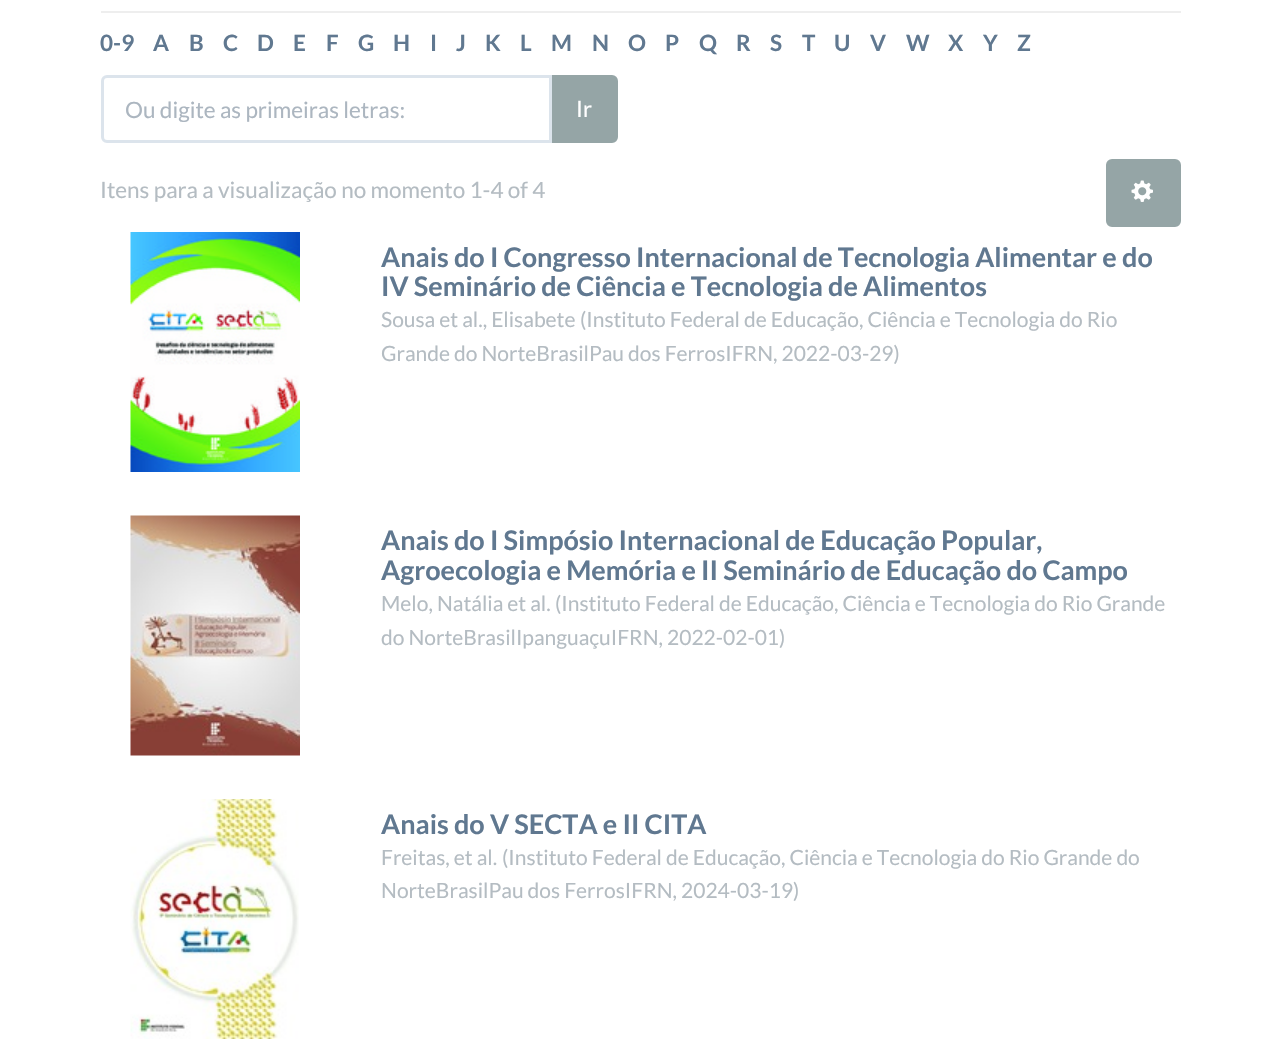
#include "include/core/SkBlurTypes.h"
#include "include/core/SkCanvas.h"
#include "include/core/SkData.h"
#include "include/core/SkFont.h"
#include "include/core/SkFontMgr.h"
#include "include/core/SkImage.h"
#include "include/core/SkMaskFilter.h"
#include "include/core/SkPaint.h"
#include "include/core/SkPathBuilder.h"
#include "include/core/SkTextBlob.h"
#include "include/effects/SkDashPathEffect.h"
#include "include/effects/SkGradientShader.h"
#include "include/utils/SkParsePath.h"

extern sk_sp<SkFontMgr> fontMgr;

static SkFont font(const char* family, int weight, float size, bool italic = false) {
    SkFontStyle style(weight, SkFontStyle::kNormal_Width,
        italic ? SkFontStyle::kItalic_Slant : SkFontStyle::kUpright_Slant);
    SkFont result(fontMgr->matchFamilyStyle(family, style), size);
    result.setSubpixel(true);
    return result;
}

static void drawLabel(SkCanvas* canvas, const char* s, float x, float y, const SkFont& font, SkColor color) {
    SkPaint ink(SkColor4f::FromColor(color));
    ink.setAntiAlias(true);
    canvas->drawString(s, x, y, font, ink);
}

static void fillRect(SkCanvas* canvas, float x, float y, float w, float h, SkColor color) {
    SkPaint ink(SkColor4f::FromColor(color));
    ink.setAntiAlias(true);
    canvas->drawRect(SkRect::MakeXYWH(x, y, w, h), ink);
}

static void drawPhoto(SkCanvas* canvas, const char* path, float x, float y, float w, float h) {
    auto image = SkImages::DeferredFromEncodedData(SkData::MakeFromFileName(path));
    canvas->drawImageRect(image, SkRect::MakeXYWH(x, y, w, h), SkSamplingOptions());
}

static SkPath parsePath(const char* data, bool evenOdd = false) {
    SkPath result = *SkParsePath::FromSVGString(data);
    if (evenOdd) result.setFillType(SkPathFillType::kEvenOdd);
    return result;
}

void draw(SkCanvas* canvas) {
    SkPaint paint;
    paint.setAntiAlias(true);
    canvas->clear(0xFFFFFFFF);
    fillRect(canvas, 101, 11, 1080, 2, 0xFFEEEEEE);
    SkFont font1 = font("Lato", 700, 22.5f);
    drawLabel(canvas, "0-9", 100, 51, font1, 0xFF607890);
    drawLabel(canvas, "A", 153, 51, font1, 0xFF607890);
    drawLabel(canvas, "B", 189, 51, font1, 0xFF607890);
    drawLabel(canvas, "C", 223, 51, font1, 0xFF607890);
    drawLabel(canvas, "D", 257, 51, font1, 0xFF607890);
    drawLabel(canvas, "E", 293, 51, font1, 0xFF607890);
    drawLabel(canvas, "F", 326, 51, font1, 0xFF607890);
    drawLabel(canvas, "G", 358, 51, font1, 0xFF607890);
    drawLabel(canvas, "H", 393, 51, font1, 0xFF607890);
    drawLabel(canvas, "I", 430, 51, font1, 0xFF607890);
    drawLabel(canvas, "J", 456, 51, font1, 0xFF607890);
    drawLabel(canvas, "K", 485, 51, font1, 0xFF607890);
    drawLabel(canvas, "L", 520, 51, font1, 0xFF607890);
    drawLabel(canvas, "M", 551, 51, font1, 0xFF607890);
    drawLabel(canvas, "N", 592, 51, font1, 0xFF607890);
    drawLabel(canvas, "O", 628, 51, font1, 0xFF607890);
    drawLabel(canvas, "P", 665, 51, font1, 0xFF607890);
    drawLabel(canvas, "Q", 699, 51, font1, 0xFF607890);
    drawLabel(canvas, "R", 736, 51, font1, 0xFF607890);
    drawLabel(canvas, "S", 770, 51, font1, 0xFF607890);
    drawLabel(canvas, "T", 802, 51, font1, 0xFF607890);
    drawLabel(canvas, "U", 834, 51, font1, 0xFF607890);
    drawLabel(canvas, "V", 870, 51, font1, 0xFF607890);
    drawLabel(canvas, "W", 906, 51, font1, 0xFF607890);
    drawLabel(canvas, "X", 948, 51, font1, 0xFF607890);
    drawLabel(canvas, "Y", 983, 51, font1, 0xFF607890);
    drawLabel(canvas, "Z", 1017, 51, font1, 0xFF607890);
    paint.setColor(0xFF95A5A6);
    canvas->drawPath(parsePath("M552.5 76.5H612C614.5 76.5 616.5 78.5 616.5 81V137C616.5 139.5 614.5 141.5 612 141.5H552.5Z"), paint);
    paint.setStroke(true);
    paint.setStrokeWidth(3);
    canvas->drawPath(parsePath("M552.5 76.5H612C614.5 76.5 616.5 78.5 616.5 81V137C616.5 139.5 614.5 141.5 612 141.5H552.5Z"), paint);
    paint.setStroke(false);
    paint.setColor(0xFFFFFFFF);
    canvas->drawPath(parsePath("M107 76.5H550.5V141.5H107C104.5 141.5 102.5 139.5 102.5 137V81C102.5 78.5 104.5 76.5 107 76.5Z"), paint);
    paint.setStroke(true);
    paint.setColor(0xFFDCE4EC);
    canvas->drawPath(parsePath("M107 76.5H550.5V141.5H107C104.5 141.5 102.5 139.5 102.5 137V81C102.5 78.5 104.5 76.5 107 76.5Z"), paint);
    SkFont font2 = font("Lato", 400, 22.5f);
    drawLabel(canvas, "Ou digite as primeiras letras:", 125, 118, font2, 0xFFACB6C0);
    drawLabel(canvas, "Ir", 576, 117, font2, 0xFFFFFFFF);
    drawLabel(canvas, "Itens para a visualização no momento 1-4 of 4", 100, 198, font2, 0xFFB4BCC2);
    paint.setStroke(false);
    paint.setColor(0xFF95A5A6);
    canvas->drawRoundRect(SkRect::MakeXYWH(1107.5f, 160.5f, 72, 65), 4.5f, 4.5f, paint);
    paint.setStroke(true);
    canvas->drawRoundRect(SkRect::MakeXYWH(1107.5f, 160.5f, 72, 65), 4.5f, 4.5f, paint);
    drawPhoto(canvas, "assets/img1.png", 1131, 180, 22, 22);
    drawPhoto(canvas, "assets/img2.png", 130, 232, 170, 240);
    SkFont font3 = font("Lato", 700, 27);
    drawLabel(canvas, "Anais do I Congresso Internacional de Tecnologia Alimentar e do", 381, 267, font3, 0xFF607890);
    drawLabel(canvas, "IV Seminário de Ciência e Tecnologia de Alimentos", 381, 296, font3, 0xFF607890);
    SkFont font4 = font("Lato", 400, 21);
    drawLabel(canvas, "Sousa et al., Elisabete", 381, 327, font4, 0xFFB4BCC2);
    drawLabel(canvas, "(Instituto Federal de Educação, Ciência e Tecnologia do Rio", 580, 327, font4, 0xFFB4BCC2);
    drawLabel(canvas, "Grande do NorteBrasilPau dos FerrosIFRN, 2022-03-29)", 381, 361, font4, 0xFFB4BCC2);
    drawPhoto(canvas, "assets/img3.png", 130, 515, 170, 241);
    drawLabel(canvas, "Anais do I Simpósio Internacional de Educação Popular,", 381, 550, font3, 0xFF607890);
    drawLabel(canvas, "Agroecologia e Memória e II Seminário de Educação do Campo", 381, 580, font3, 0xFF607890);
    drawLabel(canvas, "Melo, Natália et al.", 381, 611, font4, 0xFFB4BCC2);
    drawLabel(canvas, "(Instituto Federal de Educação, Ciência e Tecnologia do Rio Grande", 555, 611, font4, 0xFFB4BCC2);
    drawLabel(canvas, "do NorteBrasilIpanguaçuIFRN, 2022-02-01)", 381, 645, font4, 0xFFB4BCC2);
    drawPhoto(canvas, "assets/img4.png", 130, 799, 169, 240);
    drawLabel(canvas, "Anais do V SECTA e II CITA", 381, 834, font3, 0xFF607890);
    drawLabel(canvas, "Freitas, et al.", 381, 865, font4, 0xFFB4BCC2);
    drawLabel(canvas, "(Instituto Federal de Educação, Ciência e Tecnologia do Rio Grande do", 502, 865, font4, 0xFFB4BCC2);
    drawLabel(canvas, "NorteBrasilPau dos FerrosIFRN, 2024-03-19)", 381, 898, font4, 0xFFB4BCC2);
}
